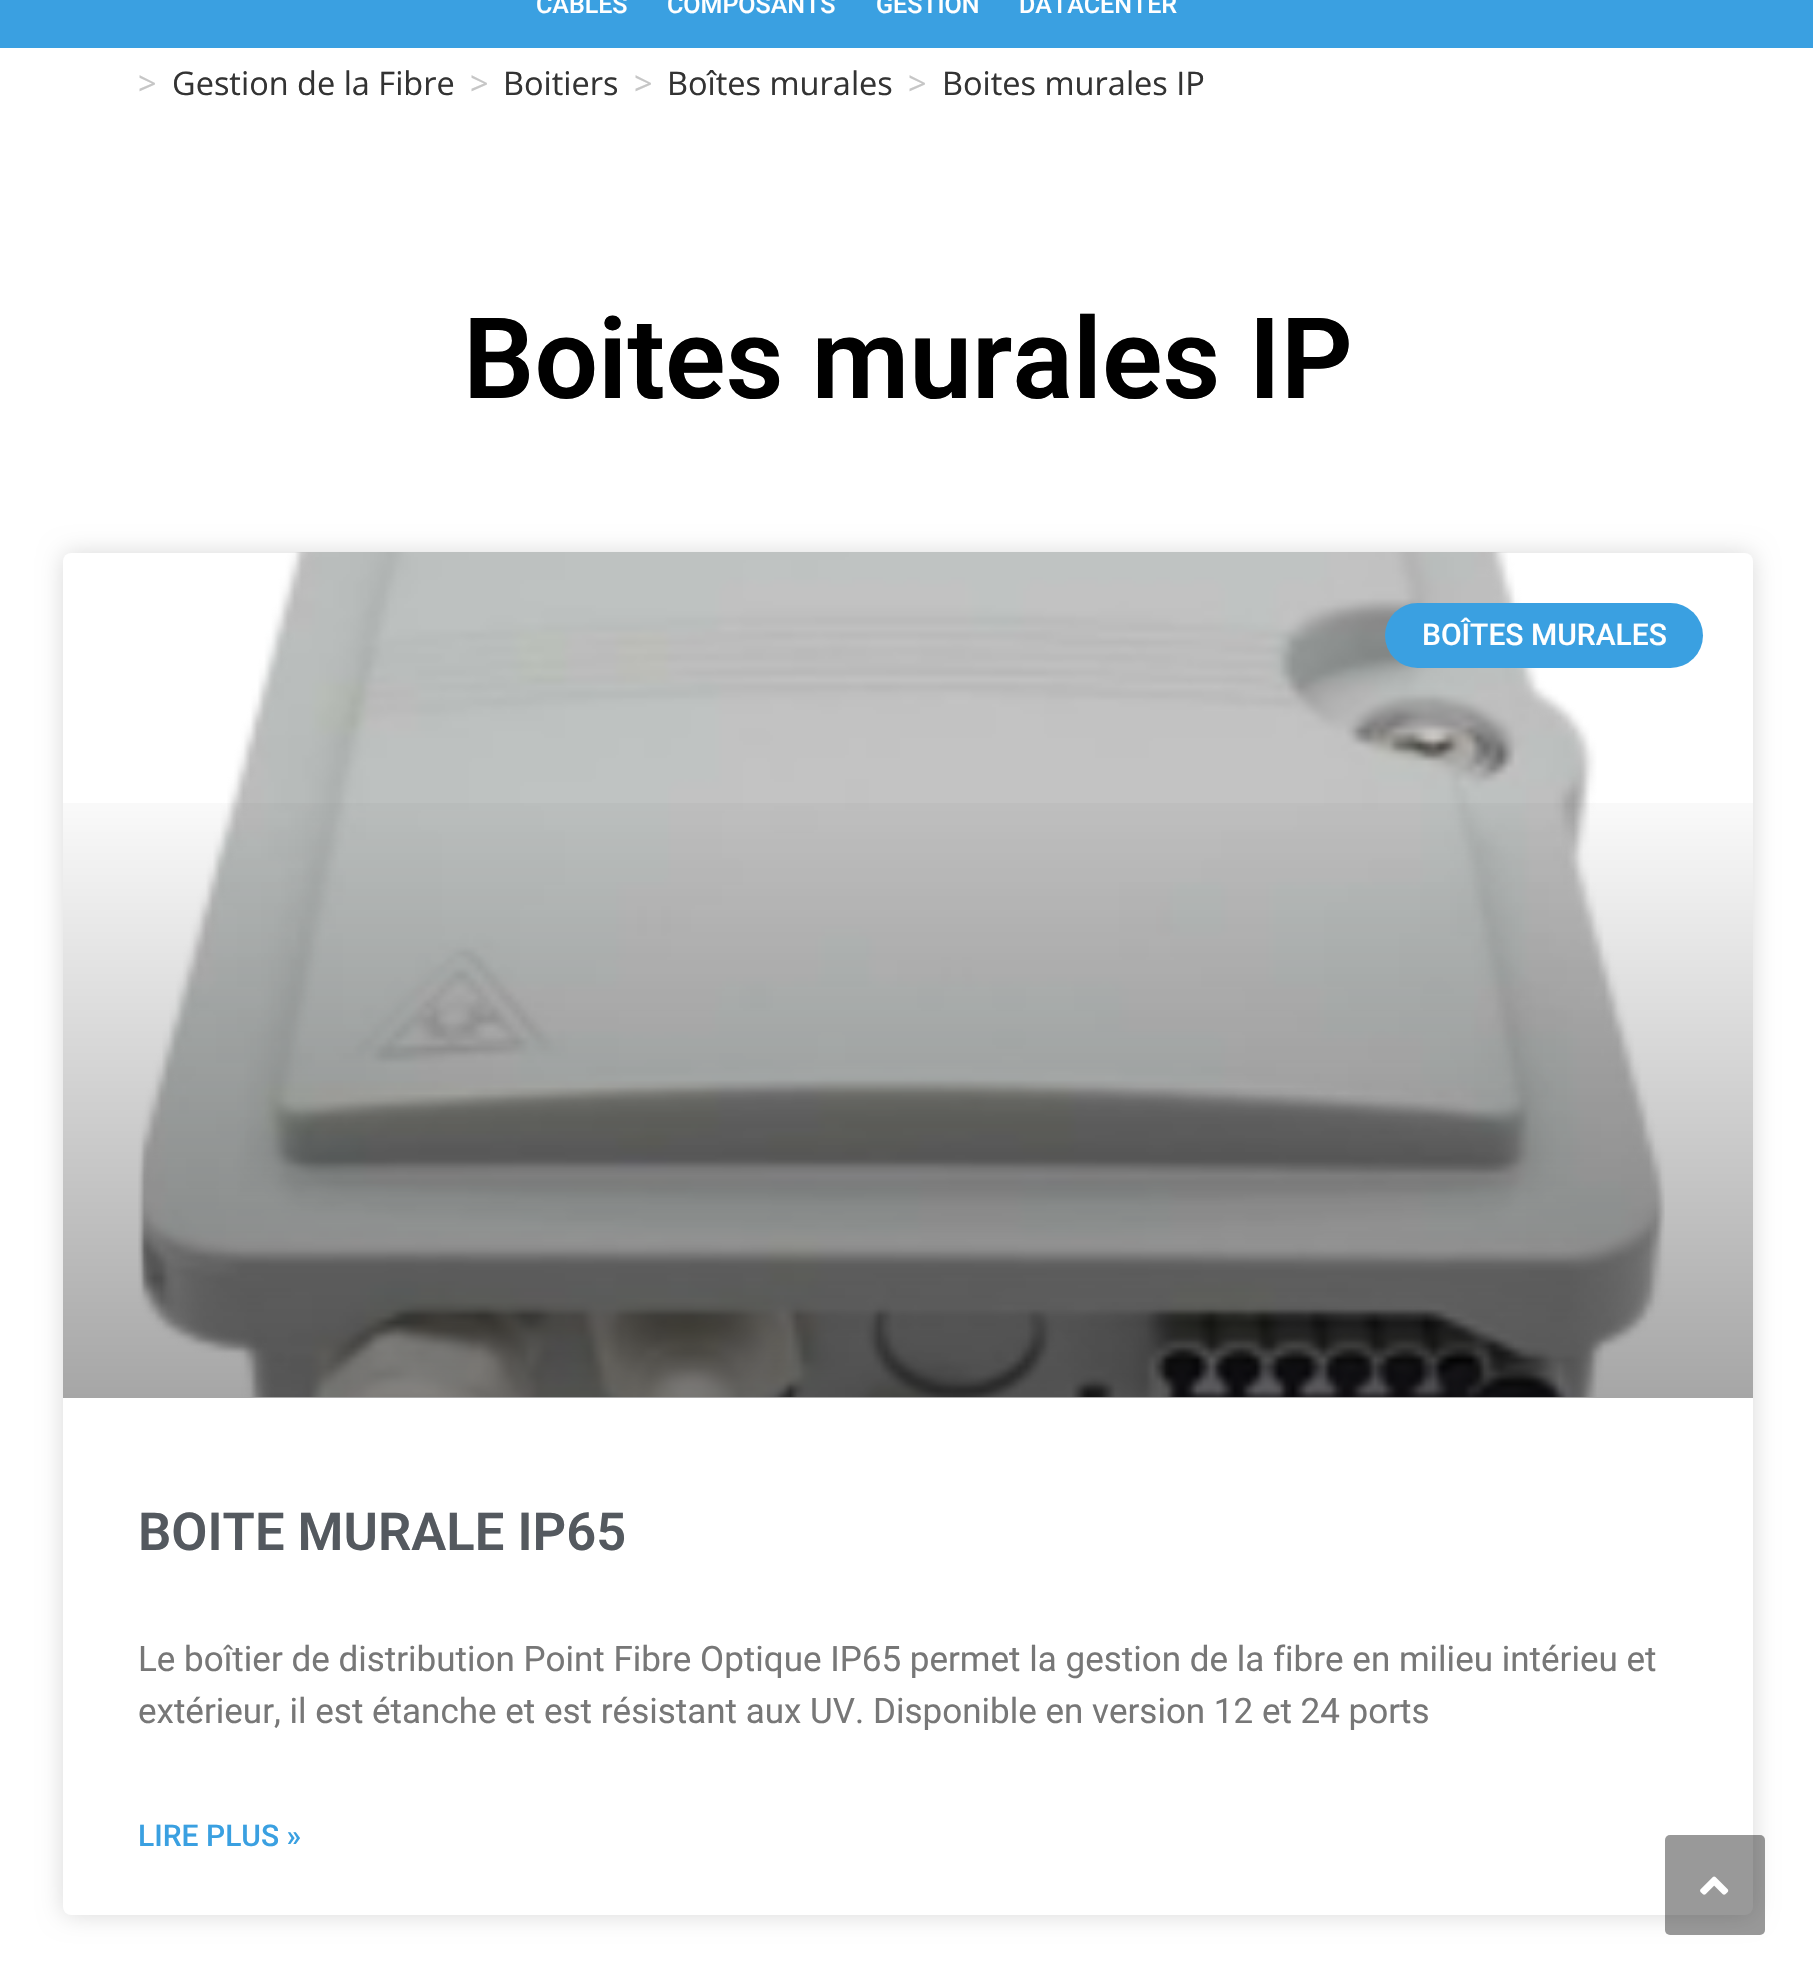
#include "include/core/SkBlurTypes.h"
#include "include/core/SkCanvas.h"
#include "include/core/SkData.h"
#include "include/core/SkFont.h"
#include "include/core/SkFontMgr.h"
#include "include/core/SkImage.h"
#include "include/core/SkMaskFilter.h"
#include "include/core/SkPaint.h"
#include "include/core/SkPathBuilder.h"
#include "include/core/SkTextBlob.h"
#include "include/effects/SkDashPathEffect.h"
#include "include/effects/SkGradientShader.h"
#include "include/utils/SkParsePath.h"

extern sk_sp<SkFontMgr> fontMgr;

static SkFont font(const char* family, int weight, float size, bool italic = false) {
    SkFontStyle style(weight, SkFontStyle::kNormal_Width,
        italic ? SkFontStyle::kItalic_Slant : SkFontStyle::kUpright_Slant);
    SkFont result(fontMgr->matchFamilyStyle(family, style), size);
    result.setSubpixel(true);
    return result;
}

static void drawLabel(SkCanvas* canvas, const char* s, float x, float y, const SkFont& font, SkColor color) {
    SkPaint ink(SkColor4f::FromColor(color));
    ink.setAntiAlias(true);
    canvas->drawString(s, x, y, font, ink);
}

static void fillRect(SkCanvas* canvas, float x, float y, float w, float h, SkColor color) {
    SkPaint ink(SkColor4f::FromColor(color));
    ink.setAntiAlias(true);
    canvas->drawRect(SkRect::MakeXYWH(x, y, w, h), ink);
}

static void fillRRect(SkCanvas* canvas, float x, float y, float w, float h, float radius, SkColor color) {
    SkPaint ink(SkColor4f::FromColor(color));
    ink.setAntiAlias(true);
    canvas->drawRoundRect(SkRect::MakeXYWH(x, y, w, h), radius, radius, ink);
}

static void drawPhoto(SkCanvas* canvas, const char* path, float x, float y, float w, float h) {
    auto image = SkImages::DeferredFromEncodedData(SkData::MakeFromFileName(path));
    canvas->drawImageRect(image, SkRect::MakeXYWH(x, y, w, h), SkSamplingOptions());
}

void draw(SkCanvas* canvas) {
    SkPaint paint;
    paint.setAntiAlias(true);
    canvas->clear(0xFFFFFFFF);
    fillRect(canvas, 0, 0, 1813, 48, 0xFF3AA0E1);
    SkFont font1 = font("Roboto", 500, 25);
    drawLabel(canvas, "CÂBLES", 536, 13, font1, 0xFFFFFFFF);
    drawLabel(canvas, "COMPOSANTS", 667, 13, font1, 0xFFFFFFFF);
    drawLabel(canvas, "GESTION", 876, 13, font1, 0xFFFFFFFF);
    drawLabel(canvas, "DATACENTER", 1019, 13, font1, 0xFFFFFFFF);
    SkFont font2 = font("Open Sans", 400, 32.5f);
    drawLabel(canvas, ">", 138, 95, font2, 0xFFC6C6C6);
    drawLabel(canvas, "Gestion de la Fibre", 172, 95, font2, 0xFF333333);
    drawLabel(canvas, ">", 470, 95, font2, 0xFFC6C6C6);
    drawLabel(canvas, "Boitiers", 503, 95, font2, 0xFF333333);
    drawLabel(canvas, ">", 634, 95, font2, 0xFFC6C6C6);
    drawLabel(canvas, "Boîtes murales", 667, 95, font2, 0xFF333333);
    drawLabel(canvas, ">", 908, 95, font2, 0xFFC6C6C6);
    drawLabel(canvas, "Boites murales IP", 942, 95, font2, 0xFF333333);
    SkFont font3 = font("Roboto", 600, 112.5f);
    drawLabel(canvas, "Boites murales IP", 463, 398, font3, 0xFF000000);
    paint.setColor(0x26000000);
    paint.setMaskFilter(SkMaskFilter::MakeBlur(kNormal_SkBlurStyle, 12.5f));
    canvas->drawRoundRect(SkRect::MakeXYWH(63, 553, 1690, 1362), 8, 8, paint);
    paint.setMaskFilter(nullptr);
    fillRRect(canvas, 63, 553, 1690, 1362, 8, 0xFFFFFFFF);
    drawPhoto(canvas, "assets/img1.png", 138, 552, 1527, 845);
    {
        const SkColor colors[] = {0x59000000, 0x00000000};
        const float stops[] = {0, 0.75f};
        const SkPoint ends[] = {{908, 1398}, {908, 553}};
        paint.setShader(SkGradientShader::MakeLinear(ends, colors, stops, 2, SkTileMode::kClamp));
        paint.setAlpha(255);
    }
    canvas->drawRect(SkRect::MakeXYWH(63, 803, 1690, 595), paint);
    fillRRect(canvas, 1385, 603, 318, 65, 32.5f, 0xFF3AA0E1);
    SkFont font4 = font("Roboto", 500, 30);
    drawLabel(canvas, "BOÎTES MURALES", 1422, 645, font4, 0xFFFFFFFF);
    SkFont font5 = font("Roboto", 600, 52.5f);
    drawLabel(canvas, "BOITE MURALE IP65", 138, 1550, font5, 0xFF54595F);
    SkFont font6 = font("Roboto", 400, 35);
    drawLabel(canvas, "Le boîtier de distribution Point Fibre Optique IP65 permet la gestion de la fibre en milieu intérieu et", 138, 1671, font6, 0xFF777777);
    drawLabel(canvas, "extérieur, il est étanche et est résistant aux UV. Disponible en version 12 et 24 ports", 138, 1723, font6, 0xFF777777);
    drawLabel(canvas, "LIRE PLUS »", 138, 1846, font4, 0xFF3AA0E1);
    fillRRect(canvas, 1665, 1835, 100, 100, 5, 0x66000000);
    drawPhoto(canvas, "assets/img2.png", 1700, 1876, 29, 19);
}
